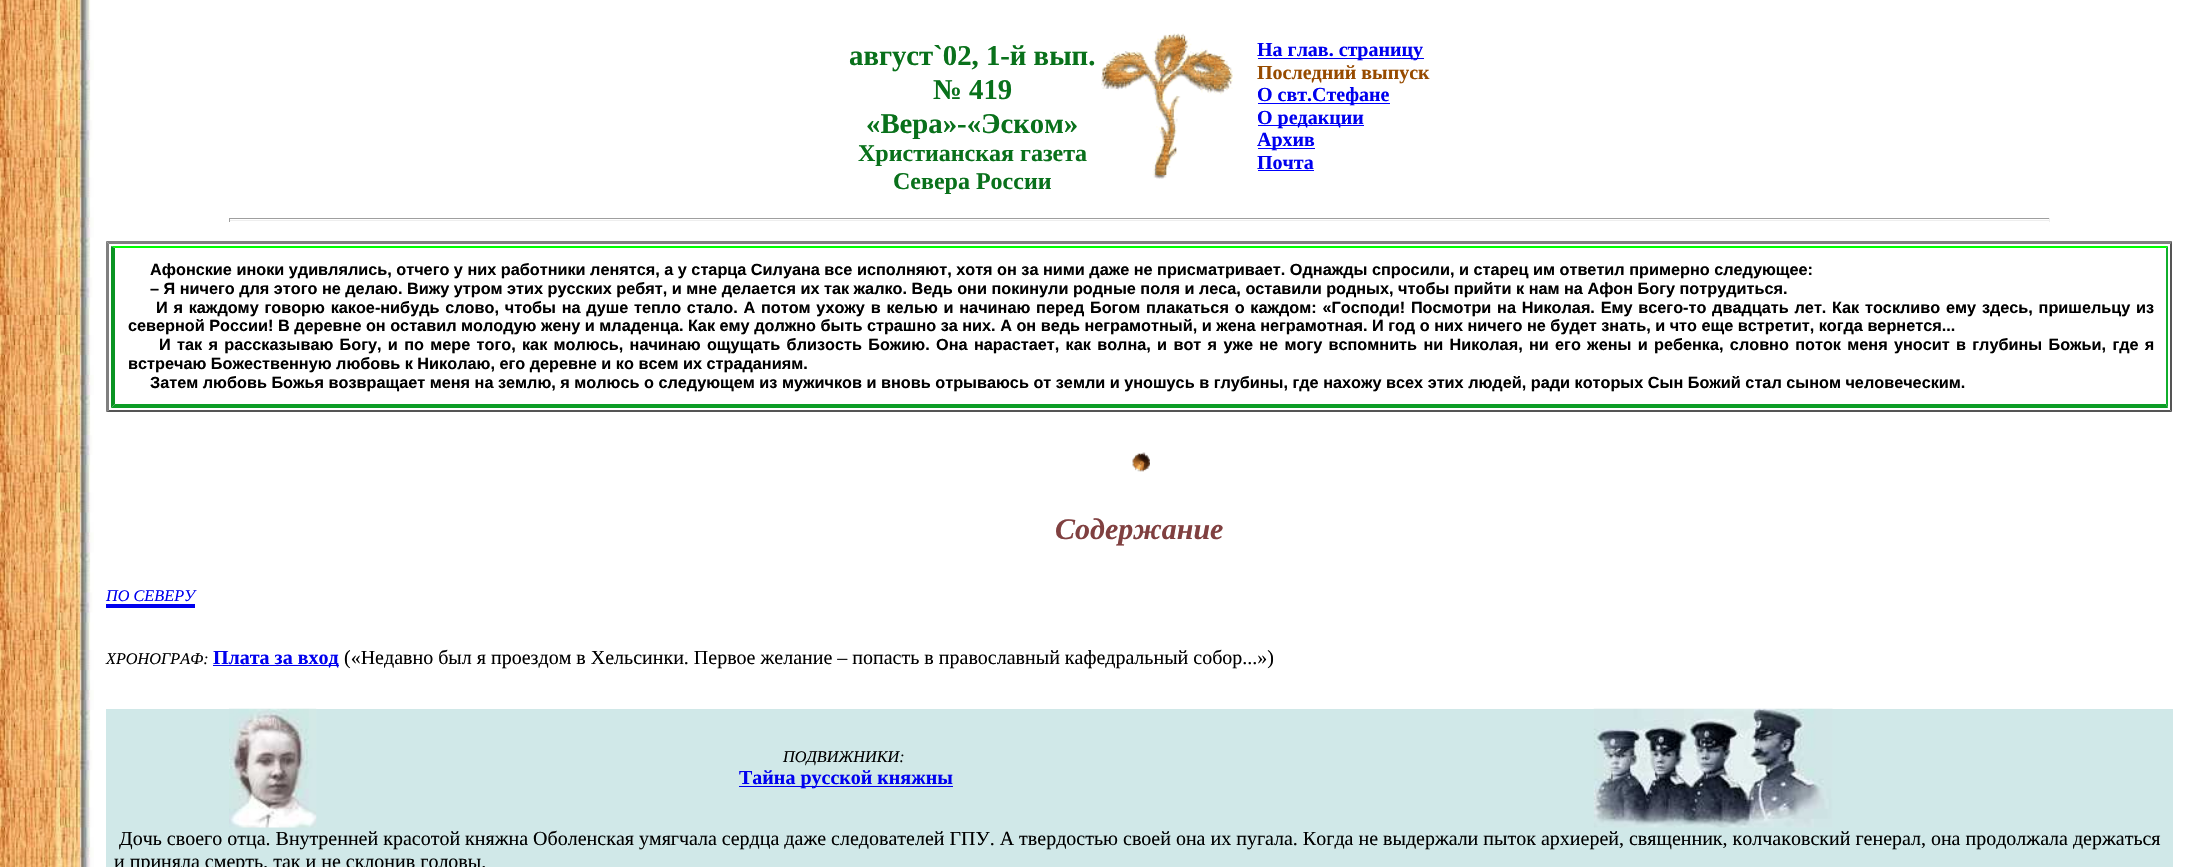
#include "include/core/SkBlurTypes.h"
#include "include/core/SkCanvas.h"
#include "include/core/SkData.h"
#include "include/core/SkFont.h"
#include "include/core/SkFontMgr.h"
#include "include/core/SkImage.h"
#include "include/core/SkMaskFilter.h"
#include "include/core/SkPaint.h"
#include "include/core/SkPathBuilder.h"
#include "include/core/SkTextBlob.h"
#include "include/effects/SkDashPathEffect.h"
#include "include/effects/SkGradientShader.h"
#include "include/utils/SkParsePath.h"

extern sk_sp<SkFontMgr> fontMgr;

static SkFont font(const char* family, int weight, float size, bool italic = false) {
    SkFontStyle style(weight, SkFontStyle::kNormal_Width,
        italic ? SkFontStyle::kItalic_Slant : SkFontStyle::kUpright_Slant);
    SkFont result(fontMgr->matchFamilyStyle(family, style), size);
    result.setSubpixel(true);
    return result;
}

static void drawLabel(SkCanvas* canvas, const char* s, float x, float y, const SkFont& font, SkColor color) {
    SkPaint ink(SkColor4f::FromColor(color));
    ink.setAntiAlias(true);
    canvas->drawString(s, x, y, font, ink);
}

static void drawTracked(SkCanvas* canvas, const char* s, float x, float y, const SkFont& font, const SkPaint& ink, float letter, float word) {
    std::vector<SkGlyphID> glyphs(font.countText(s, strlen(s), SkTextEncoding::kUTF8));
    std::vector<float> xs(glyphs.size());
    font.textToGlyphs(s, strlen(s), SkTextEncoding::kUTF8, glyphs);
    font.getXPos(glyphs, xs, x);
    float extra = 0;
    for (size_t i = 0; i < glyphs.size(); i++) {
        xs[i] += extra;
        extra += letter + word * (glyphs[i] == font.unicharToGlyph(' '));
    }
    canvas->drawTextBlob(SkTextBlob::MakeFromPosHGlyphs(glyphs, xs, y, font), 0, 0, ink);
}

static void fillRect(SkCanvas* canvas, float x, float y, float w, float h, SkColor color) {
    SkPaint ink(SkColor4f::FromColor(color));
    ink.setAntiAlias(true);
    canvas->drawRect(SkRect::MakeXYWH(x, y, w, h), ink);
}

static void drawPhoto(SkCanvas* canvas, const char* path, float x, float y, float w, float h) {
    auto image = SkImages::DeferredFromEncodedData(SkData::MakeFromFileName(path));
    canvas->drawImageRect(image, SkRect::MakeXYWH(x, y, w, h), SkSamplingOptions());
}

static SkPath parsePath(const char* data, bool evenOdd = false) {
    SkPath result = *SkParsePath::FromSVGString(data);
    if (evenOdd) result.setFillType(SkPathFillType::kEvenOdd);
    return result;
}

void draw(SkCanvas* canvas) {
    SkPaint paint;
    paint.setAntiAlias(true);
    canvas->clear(0xFFFFFFFF);
    drawPhoto(canvas, "assets/img1.png", 0, 0, 94, 867);
    SkFont font1 = font("Liberation Serif", 700, 28.75f);
    drawLabel(canvas, "август`02, 1-й вып.", 849, 65, font1, 0xFF09711B);
    drawLabel(canvas, "№ 419", 933, 99, font1, 0xFF09711B);
    drawLabel(canvas, "«Вера»-«Эском»", 866, 133, font1, 0xFF09711B);
    SkFont font2 = font("Liberation Serif", 700, 24);
    drawLabel(canvas, "Христианская газета", 858, 161, font2, 0xFF09711B);
    drawLabel(canvas, "Севера России", 893, 189, font2, 0xFF09711B);
    drawPhoto(canvas, "assets/img2.png", 1101, 33, 132, 146);
    fillRect(canvas, 1258, 58, 166, 1, 0xFF0000EE);
    SkFont font3 = font("Liberation Serif", 700, 20);
    drawLabel(canvas, "На глав. страницу", 1257, 56, font3, 0xFF0000EE);
    drawLabel(canvas, "Последний выпуск", 1257, 79, font3, 0xFF974B00);
    fillRect(canvas, 1258, 103, 132, 1, 0xFF0000FF);
    drawLabel(canvas, "О свт.Стефане", 1257, 101, font3, 0xFF0000EE);
    fillRect(canvas, 1258, 125, 106, 1, 0xFF0000FF);
    drawLabel(canvas, "О редакции", 1257, 124, font3, 0xFF0000EE);
    fillRect(canvas, 1258, 148, 57, 1, 0xFF0000FF);
    drawLabel(canvas, "Архив", 1257, 146, font3, 0xFF0000EE);
    drawLabel(canvas, "Почта", 1257, 169, font3, 0xFF0000EE);
    fillRect(canvas, 1258, 170, 56, 1, 0xFF0000FF);
    fillRect(canvas, 229, 218, 1821, 1, 0xFF9F9F9F);
    fillRect(canvas, 2049, 218, 1, 4, 0xFFEEEEEE);
    fillRect(canvas, 229, 220, 1821, 1, 0xFFEEEEEE);
    fillRect(canvas, 229, 218, 1, 4, 0xFF9F9F9F);
    paint.setColor(0xFF808080);
    canvas->drawPath(parsePath("M106 241H2172L2170 244H109Z"), paint);
    paint.setColor(0xFF555555);
    canvas->drawPath(parsePath("M2172 241V412L2170 410V244Z"), paint);
    canvas->drawPath(parsePath("M2172 412H106L109 410H2170Z"), paint);
    paint.setColor(0xFF808080);
    canvas->drawPath(parsePath("M106 412V241L109 244V410Z"), paint);
    paint.setColor(0xFF00FF00);
    canvas->drawPath(parsePath("M111 246H2168L2166 248H115Z"), paint);
    paint.setColor(0xFF10AF2C);
    canvas->drawPath(parsePath("M2168 246V408L2166 404V248Z"), paint);
    paint.setColor(0xFF0D9D26);
    canvas->drawPath(parsePath("M2168 408H111L115 404H2166Z"), paint);
    paint.setColor(0xFF0A9422);
    canvas->drawPath(parsePath("M111 408V246L115 248V404Z"), paint);
    SkFont font4 = font("Liberation Sans", 700, 16.25f);
    drawLabel(canvas, "Афонские иноки удивлялись, отчего у них работники ленятся, а у старца Силуана все исполняют, хотя он за ними даже не присматривает. Однажды спросили, и старец им ответил примерно следующее:", 150, 275, font4, 0xFF000000);
    drawLabel(canvas, "– Я ничего для этого не делаю. Вижу утром этих русских ребят, и мне делается их так жалко. Ведь они покинули родные поля и леса, оставили родных, чтобы прийти к нам на Афон Богу потрудиться.", 150, 294, font4, 0xFF000000);
    paint.setColor(0xFF000000);
    drawTracked(canvas, "И я каждому говорю какое-нибудь слово, чтобы на душе тепло стало. А потом ухожу в келью и начинаю перед Богом плакаться о каждом: «Господи! Посмотри на Николая. Ему всего-то двадцать лет. Как тоскливо ему здесь, пришельцу из", 156, 313, font4, paint, 0, 1.25f);
    drawLabel(canvas, "северной России! В деревне он оставил молодую жену и младенца. Как ему должно быть страшно за них. А он ведь неграмотный, и жена неграмотная. И год о них ничего не будет знать, и что еще встретит, когда вернется...", 128, 331, font4, 0xFF000000);
    drawTracked(canvas, "И так я рассказываю Богу, и по мере того, как молюсь, начинаю ощущать близость Божию. Она нарастает, как волна, и вот я уже не могу вспомнить ни Николая, ни его жены и ребенка, словно поток меня уносит в глубины Божьи, где я", 159, 350, font4, paint, 0, 1.8f);
    drawLabel(canvas, "встречаю Божественную любовь к Николаю, его деревне и ко всем их страданиям.", 128, 369, font4, 0xFF000000);
    drawLabel(canvas, "Затем любовь Божья возвращает меня на землю, я молюсь о следующем из мужичков и вновь отрываюсь от земли и уношусь в глубины, где нахожу всех этих людей, ради которых Сын Божий стал сыном человеческим.", 150, 388, font4, 0xFF000000);
    drawPhoto(canvas, "assets/img3.png", 1132, 452, 18, 20);
    SkFont font5 = font("Liberation Serif", 700, 30, true);
    drawLabel(canvas, "Содержание", 1055, 539, font5, 0xFF804040);
    SkFont font6 = font("Liberation Serif", 400, 16.25f, true);
    drawLabel(canvas, "ПО СЕВЕРУ", 106, 601, font6, 0xFF0000EE);
    fillRect(canvas, 106, 604, 89, 4, 0xFF0000EE);
    drawLabel(canvas, "ХРОНОГРАФ:", 106, 664, font6, 0xFF000000);
    fillRect(canvas, 213, 665, 126, 1, 0xFF0000EE);
    drawLabel(canvas, "Плата за вход", 213, 664, font3, 0xFF0000EE);
    SkFont font7 = font("Liberation Serif", 400, 20);
    drawLabel(canvas, "(«Недавно был я проездом в Хельсинки. Первое желание – попасть в православный кафедральный собор...»)", 344, 664, font7, 0xFF000000);
    fillRect(canvas, 106, 709, 2067, 158, 0xFFD0E8E8);
    drawPhoto(canvas, "assets/img4.png", 229, 708, 88, 120);
    drawLabel(canvas, "ПОДВИЖНИКИ:", 783, 762, font6, 0xFF000000);
    fillRect(canvas, 739, 786, 214, 1, 0xFF0000EE);
    drawLabel(canvas, "Тайна русской княжны", 739, 784, font3, 0xFF0000EE);
    drawPhoto(canvas, "assets/img5.png", 1593, 708, 240, 120);
    drawLabel(canvas, "Дочь своего отца. Внутренней красотой княжна Оболенская умягчала сердца даже следователей ГПУ. А твердостью своей она их пугала. Когда не выдержали пыток архиерей, священник, колчаковский генерал, она продолжала держаться", 119, 845, font7, 0xFF000000);
    drawLabel(canvas, "и приняла смерть, так и не склонив головы.", 114, 868, font7, 0xFF000000);
}
